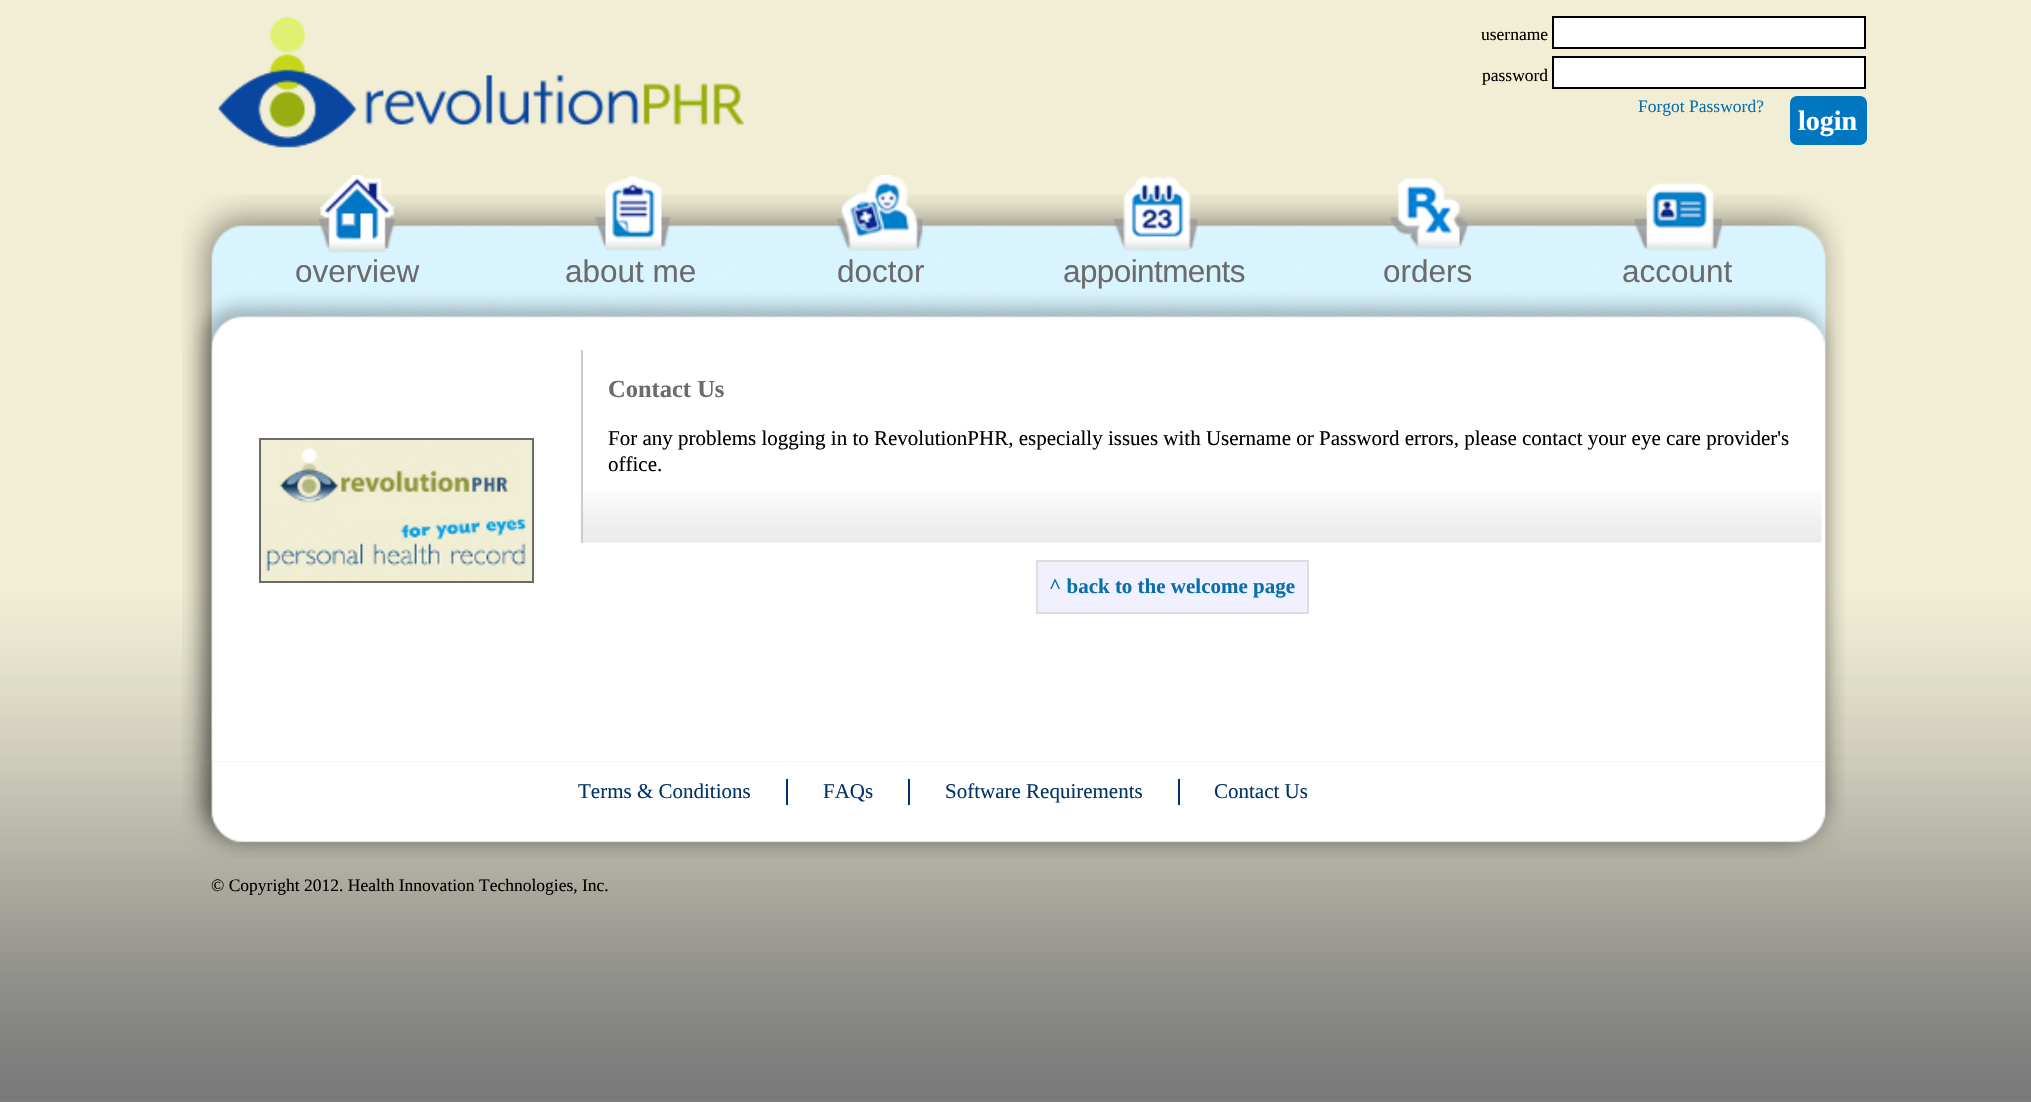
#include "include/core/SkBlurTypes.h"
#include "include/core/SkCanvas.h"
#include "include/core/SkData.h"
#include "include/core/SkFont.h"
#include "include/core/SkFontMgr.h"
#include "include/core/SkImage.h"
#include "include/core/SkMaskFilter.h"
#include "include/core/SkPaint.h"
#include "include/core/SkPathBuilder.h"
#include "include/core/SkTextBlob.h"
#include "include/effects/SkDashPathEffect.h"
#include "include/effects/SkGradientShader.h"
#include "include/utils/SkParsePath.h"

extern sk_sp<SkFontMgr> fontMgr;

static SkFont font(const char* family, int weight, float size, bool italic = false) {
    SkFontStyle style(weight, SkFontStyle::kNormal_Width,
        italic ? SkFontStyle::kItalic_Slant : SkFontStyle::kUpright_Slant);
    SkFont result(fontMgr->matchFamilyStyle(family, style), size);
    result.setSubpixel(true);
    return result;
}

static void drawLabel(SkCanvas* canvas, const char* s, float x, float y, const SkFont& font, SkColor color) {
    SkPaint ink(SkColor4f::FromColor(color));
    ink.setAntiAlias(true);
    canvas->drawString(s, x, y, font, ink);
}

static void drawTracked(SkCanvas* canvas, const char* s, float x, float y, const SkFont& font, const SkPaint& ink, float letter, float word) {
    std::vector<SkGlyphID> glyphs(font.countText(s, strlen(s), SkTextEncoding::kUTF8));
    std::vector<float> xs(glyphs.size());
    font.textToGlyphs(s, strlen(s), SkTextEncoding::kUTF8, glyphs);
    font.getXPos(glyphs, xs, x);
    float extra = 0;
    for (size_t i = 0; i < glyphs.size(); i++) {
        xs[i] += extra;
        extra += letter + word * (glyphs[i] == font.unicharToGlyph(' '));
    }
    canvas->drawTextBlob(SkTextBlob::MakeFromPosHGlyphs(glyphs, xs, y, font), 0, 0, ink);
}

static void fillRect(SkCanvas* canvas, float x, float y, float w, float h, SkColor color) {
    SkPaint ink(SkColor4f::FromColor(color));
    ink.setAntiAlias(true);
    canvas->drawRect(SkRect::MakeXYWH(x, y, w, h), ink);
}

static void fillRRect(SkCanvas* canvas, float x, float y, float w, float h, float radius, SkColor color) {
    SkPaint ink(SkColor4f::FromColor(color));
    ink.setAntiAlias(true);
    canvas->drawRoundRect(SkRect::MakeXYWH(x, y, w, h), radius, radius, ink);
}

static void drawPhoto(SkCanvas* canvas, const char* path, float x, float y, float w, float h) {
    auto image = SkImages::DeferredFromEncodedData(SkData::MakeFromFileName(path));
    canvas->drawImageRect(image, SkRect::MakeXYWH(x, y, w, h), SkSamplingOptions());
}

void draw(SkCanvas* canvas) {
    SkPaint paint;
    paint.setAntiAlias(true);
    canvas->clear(0xFFFFFFFF);
    drawPhoto(canvas, "assets/img1.png", 0, 0, 2031, 1102);
    drawPhoto(canvas, "assets/img2.png", 218, 17, 526, 131);
    SkFont font1 = font("Liberation Serif", 400, 17.5f);
    drawLabel(canvas, "username", 1481, 40, font1, 0xFF000000);
    paint.setColor(0xFFFFFFFF);
    canvas->drawRect(SkRect::MakeXYWH(1553, 17, 312, 31), paint);
    paint.setStroke(true);
    paint.setStrokeWidth(2);
    paint.setColor(0xFF000000);
    canvas->drawRect(SkRect::MakeXYWH(1553, 17, 312, 31), paint);
    drawLabel(canvas, "password", 1482, 81, font1, 0xFF000000);
    paint.setStroke(false);
    paint.setColor(0xFFFFFFFF);
    canvas->drawRect(SkRect::MakeXYWH(1553, 57, 312, 31), paint);
    paint.setStroke(true);
    paint.setColor(0xFF000000);
    canvas->drawRect(SkRect::MakeXYWH(1553, 57, 312, 31), paint);
    drawLabel(canvas, "Forgot Password?", 1638, 112, font1, 0xFF086FAF);
    fillRRect(canvas, 1790, 96, 77, 49, 7, 0xFF0177C2);
    SkFont font2 = font("Liberation Serif", 700, 28);
    drawLabel(canvas, "login", 1798, 130, font2, 0xFFFFFFFF);
    drawPhoto(canvas, "assets/img3.png", 182, 194, 1663, 156);
    drawPhoto(canvas, "assets/img4.png", 318, 175, 78, 78);
    SkFont font3 = font("Liberation Sans", 400, 31.5f);
    drawLabel(canvas, "overview", 295, 282, font3, 0xFF6B6B6B);
    drawPhoto(canvas, "assets/img5.png", 594, 176, 77, 75);
    drawLabel(canvas, "about me", 565, 282, font3, 0xFF6B6B6B);
    drawPhoto(canvas, "assets/img6.png", 836, 175, 87, 76);
    drawLabel(canvas, "doctor", 837, 282, font3, 0xFF6B6B6B);
    drawPhoto(canvas, "assets/img7.png", 1113, 176, 85, 83);
    paint.setStroke(false);
    paint.setColor(0xFF6B6B6B);
    drawTracked(canvas, "appointments", 1063, 282, font3, paint, -0.6f, 0);
    drawPhoto(canvas, "assets/img8.png", 1389, 178, 80, 72);
    drawLabel(canvas, "orders", 1383, 282, font3, 0xFF6B6B6B);
    drawPhoto(canvas, "assets/img9.png", 1634, 183, 88, 68);
    drawLabel(canvas, "account", 1622, 282, font3, 0xFF6B6B6B);
    drawPhoto(canvas, "assets/img13.png", 182, 761, 1663, 98);
    drawPhoto(canvas, "assets/img10.png", 182, 350, 1663, 412);
    drawPhoto(canvas, "assets/img11.png", 261, 440, 271, 141);
    paint.setStroke(true);
    canvas->drawRect(SkRect::MakeXYWH(260, 439, 273, 143), paint);
    drawPhoto(canvas, "assets/img12.png", 583, 492, 1239, 51);
    fillRect(canvas, 581, 350, 2, 193, 0xFFCCCCCC);
    SkFont font4 = font("Liberation Serif", 700, 24.5f);
    drawLabel(canvas, "Contact Us", 608, 397, font4, 0xFF6B6B6B);
    SkFont font5 = font("Liberation Serif", 400, 21);
    drawLabel(canvas, "For any problems logging in to RevolutionPHR, especially issues with Username or Password errors, please contact your eye care provider's", 608, 445, font5, 0xFF000000);
    drawLabel(canvas, "office.", 608, 471, font5, 0xFF000000);
    paint.setStroke(false);
    paint.setColor(0xFFF0F0FF);
    canvas->drawRect(SkRect::MakeXYWH(1037, 561, 271, 52), paint);
    paint.setStroke(true);
    paint.setColor(0xFFDDDDDD);
    canvas->drawRect(SkRect::MakeXYWH(1037, 561, 271, 52), paint);
    SkFont font6 = font("Liberation Serif", 700, 21);
    drawLabel(canvas, "^ back to the welcome page", 1049, 593, font6, 0xFF086FAF);
    fillRect(canvas, 786, 779, 2, 26, 0xFF003366);
    drawLabel(canvas, "Terms & Conditions", 578, 798, font5, 0xFF003366);
    fillRect(canvas, 908, 779, 2, 26, 0xFF003366);
    drawLabel(canvas, "FAQs", 823, 798, font5, 0xFF003366);
    fillRect(canvas, 1178, 779, 2, 26, 0xFF003366);
    drawLabel(canvas, "Software Requirements", 945, 798, font5, 0xFF003366);
    drawLabel(canvas, "Contact Us", 1214, 798, font5, 0xFF003366);
    drawLabel(canvas, "© Copyright 2012. Health Innovation Technologies, Inc.", 211, 891, font1, 0xFF000000);
}
